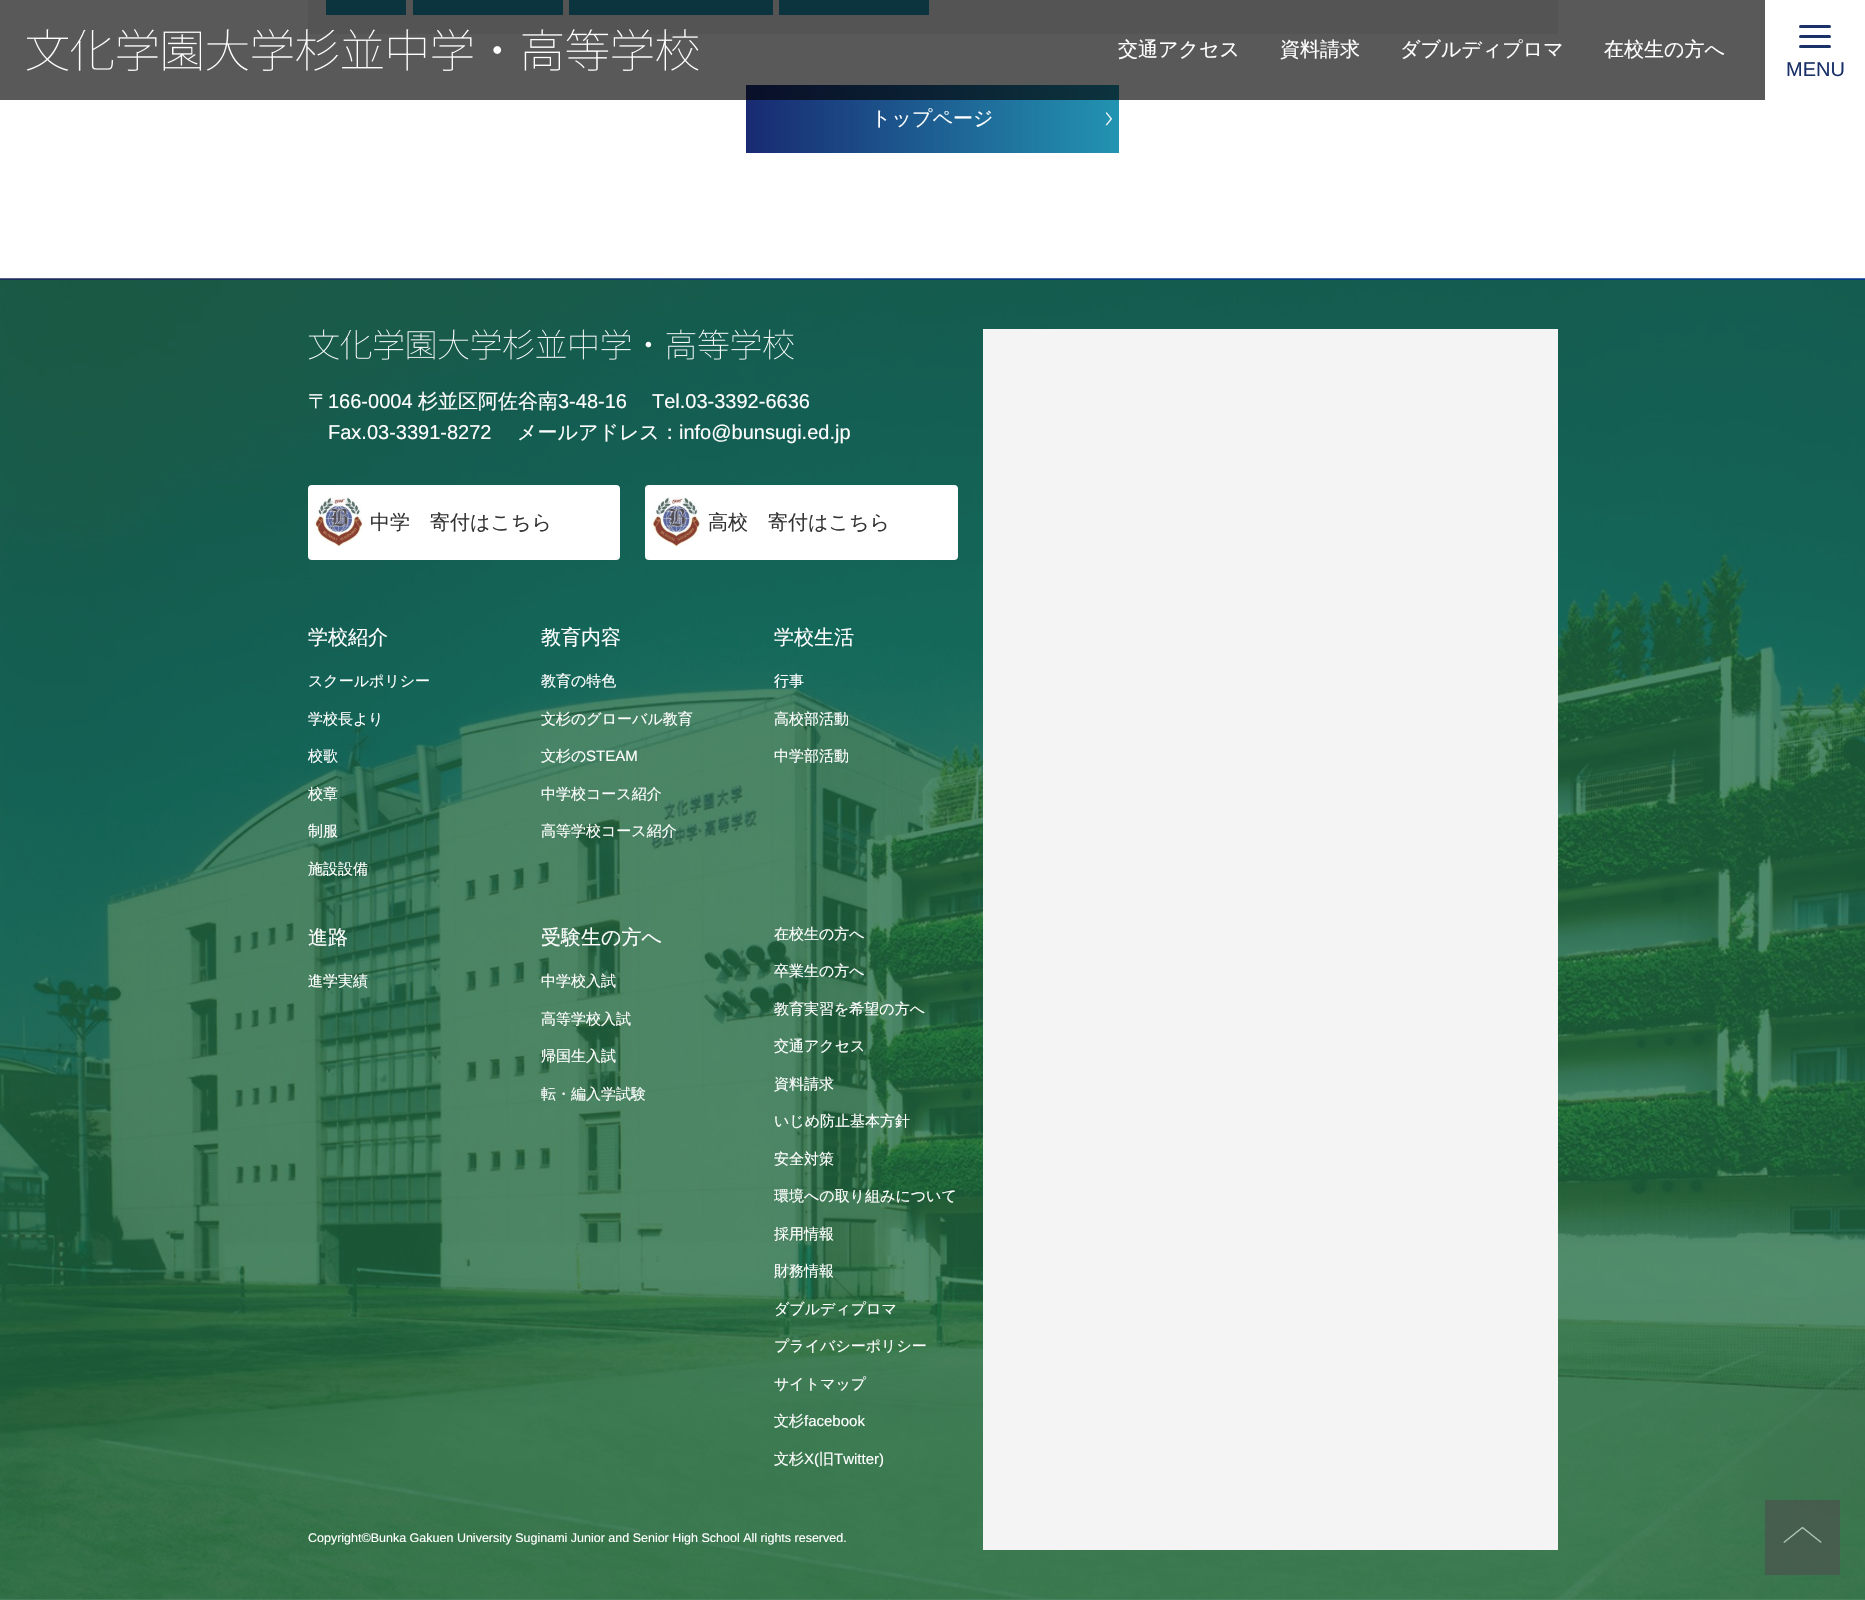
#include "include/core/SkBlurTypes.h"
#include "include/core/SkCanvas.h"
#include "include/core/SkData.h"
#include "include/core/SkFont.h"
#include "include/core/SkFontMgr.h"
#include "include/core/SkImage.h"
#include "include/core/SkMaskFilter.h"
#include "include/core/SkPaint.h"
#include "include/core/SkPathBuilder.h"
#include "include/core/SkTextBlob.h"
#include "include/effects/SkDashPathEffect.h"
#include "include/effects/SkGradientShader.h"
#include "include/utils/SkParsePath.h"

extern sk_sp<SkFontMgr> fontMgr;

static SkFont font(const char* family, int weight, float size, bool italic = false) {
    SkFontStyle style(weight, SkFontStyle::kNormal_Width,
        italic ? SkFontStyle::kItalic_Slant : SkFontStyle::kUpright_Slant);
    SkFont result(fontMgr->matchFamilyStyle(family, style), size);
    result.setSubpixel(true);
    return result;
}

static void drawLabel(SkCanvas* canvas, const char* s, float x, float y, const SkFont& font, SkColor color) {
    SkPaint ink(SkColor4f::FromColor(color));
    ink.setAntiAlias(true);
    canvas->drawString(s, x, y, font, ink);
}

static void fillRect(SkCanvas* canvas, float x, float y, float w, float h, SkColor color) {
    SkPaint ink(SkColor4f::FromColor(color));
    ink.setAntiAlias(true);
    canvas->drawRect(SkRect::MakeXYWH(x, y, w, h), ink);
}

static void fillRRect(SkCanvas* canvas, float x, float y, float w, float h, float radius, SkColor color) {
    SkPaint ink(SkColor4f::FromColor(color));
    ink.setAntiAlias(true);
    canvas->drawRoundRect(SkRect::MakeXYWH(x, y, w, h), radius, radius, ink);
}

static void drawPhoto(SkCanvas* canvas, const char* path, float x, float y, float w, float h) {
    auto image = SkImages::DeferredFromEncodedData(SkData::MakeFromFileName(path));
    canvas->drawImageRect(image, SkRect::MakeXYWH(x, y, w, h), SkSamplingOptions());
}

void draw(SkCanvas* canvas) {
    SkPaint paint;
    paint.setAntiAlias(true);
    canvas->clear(0xFFFFFFFF);
    fillRect(canvas, 0, 1599, 1865, 1, 0xFF538E6D);
    fillRect(canvas, 308, 0, 1250, 34, 0xFFEFEFEF);
    fillRect(canvas, 326, 0, 80, 15, 0xFF2293B1);
    fillRect(canvas, 413, 0, 150, 15, 0xFF2293B1);
    fillRect(canvas, 569, 0, 204, 15, 0xFF2293B1);
    fillRect(canvas, 779, 0, 150, 15, 0xFF2293B1);
    fillRect(canvas, 748, 85, 371, 68, 0xFF2293B1);
    drawPhoto(canvas, "assets/img2.png", 1105, 112, 8, 14);
    {
        const SkColor colors[] = {0xFF182A72, 0x00182A72};
        const float stops[] = {0, 1};
        const SkPoint ends[] = {{746, 119}, {1119, 119}};
        paint.setShader(SkGradientShader::MakeLinear(ends, colors, stops, 2, SkTileMode::kClamp));
        paint.setAlpha(255);
    }
    canvas->drawRect(SkRect::MakeXYWH(746, 85, 365, 68), paint);
    fillRect(canvas, 0, 0, 1765, 100, 0xA6000000);
    drawPhoto(canvas, "assets/img1.png", 26, 29, 673, 42);
    SkFont font1 = font("WenQuanYi Zen Hei", 500, 20);
    drawLabel(canvas, "交通アクセス", 1118, 56, font1, 0xFFFFFFFF);
    drawLabel(canvas, "資料請求", 1280, 56, font1, 0xFFFFFFFF);
    drawLabel(canvas, "ダブルディプロマ", 1400, 56, font1, 0xFFFFFFFF);
    drawLabel(canvas, "在校生の方へ", 1604, 56, font1, 0xFFFFFFFF);
    fillRRect(canvas, 1799, 25, 32, 3, 1.5f, 0xFF1A3168);
    fillRRect(canvas, 1799, 35, 32, 3, 1.5f, 0xFF1A3168);
    fillRRect(canvas, 1799, 45, 32, 3, 1.5f, 0xFF1A3168);
    SkFont font2 = font("Liberation Sans", 400, 20);
    drawLabel(canvas, "MENU", 1786, 76, font2, 0xFF1A3168);
    drawLabel(canvas, "トップページ", 871, 125, font1, 0xFFFFFFFF);
    drawPhoto(canvas, "assets/img3.png", 0, 278, 1865, 1322);
    drawPhoto(canvas, "assets/img4.png", 308, 329, 486, 31);
    drawLabel(canvas, "〒", 308, 408, font1, 0xFFFFFFFF);
    drawLabel(canvas, "166-0004", 328, 408, font2, 0xFFFFFFFF);
    drawLabel(canvas, "杉並区阿佐谷南", 418, 408, font1, 0xFFFFFFFF);
    drawLabel(canvas, "3-48-16", 558, 408, font2, 0xFFFFFFFF);
    drawLabel(canvas, "Tel.03-3392-6636", 652, 408, font2, 0xFFFFFFFF);
    drawLabel(canvas, "Fax.03-3391-8272", 328, 439, font2, 0xFFFFFFFF);
    drawLabel(canvas, "メールアドレス：", 517, 439, font1, 0xFFFFFFFF);
    drawLabel(canvas, "info@bunsugi.ed.jp", 679, 439, font2, 0xFFFFFFFF);
    fillRRect(canvas, 308, 485, 312, 75, 4, 0xFFFFFFFF);
    drawPhoto(canvas, "assets/img5.png", 314, 497, 49, 50);
    drawLabel(canvas, "中学　寄付はこちら", 370, 529, font1, 0xFF333333);
    fillRRect(canvas, 645, 485, 313, 75, 4, 0xFFFFFFFF);
    drawPhoto(canvas, "assets/img6.png", 651, 497, 49, 50);
    drawLabel(canvas, "高校　寄付はこちら", 708, 529, font1, 0xFF333333);
    drawLabel(canvas, "学校紹介", 308, 644, font1, 0xFFFFFFFF);
    SkFont font3 = font("WenQuanYi Zen Hei", 500, 15);
    drawLabel(canvas, "スクールポリシー", 308, 686, font3, 0xFFFFFFFF);
    drawLabel(canvas, "学校長より", 308, 724, font3, 0xFFFFFFFF);
    drawLabel(canvas, "校歌", 308, 761, font3, 0xFFFFFFFF);
    drawLabel(canvas, "校章", 308, 799, font3, 0xFFFFFFFF);
    drawLabel(canvas, "制服", 308, 836, font3, 0xFFFFFFFF);
    drawLabel(canvas, "施設設備", 308, 874, font3, 0xFFFFFFFF);
    drawLabel(canvas, "教育内容", 541, 644, font1, 0xFFFFFFFF);
    drawLabel(canvas, "教育の特色", 541, 686, font3, 0xFFFFFFFF);
    drawLabel(canvas, "文杉のグローバル教育", 541, 724, font3, 0xFFFFFFFF);
    drawLabel(canvas, "文杉の", 541, 761, font3, 0xFFFFFFFF);
    SkFont font4 = font("Liberation Sans", 400, 15);
    drawLabel(canvas, "STEAM", 586, 761, font4, 0xFFFFFFFF);
    drawLabel(canvas, "中学校コース紹介", 541, 799, font3, 0xFFFFFFFF);
    drawLabel(canvas, "高等学校コース紹介", 541, 836, font3, 0xFFFFFFFF);
    drawLabel(canvas, "学校生活", 774, 644, font1, 0xFFFFFFFF);
    drawLabel(canvas, "行事", 774, 686, font3, 0xFFFFFFFF);
    drawLabel(canvas, "高校部活動", 774, 724, font3, 0xFFFFFFFF);
    drawLabel(canvas, "中学部活動", 774, 761, font3, 0xFFFFFFFF);
    drawLabel(canvas, "進路", 308, 944, font1, 0xFFFFFFFF);
    drawLabel(canvas, "進学実績", 308, 986, font3, 0xFFFFFFFF);
    drawLabel(canvas, "受験生の方へ", 541, 944, font1, 0xFFFFFFFF);
    drawLabel(canvas, "中学校入試", 541, 986, font3, 0xFFFFFFFF);
    drawLabel(canvas, "高等学校入試", 541, 1024, font3, 0xFFFFFFFF);
    drawLabel(canvas, "帰国生入試", 541, 1061, font3, 0xFFFFFFFF);
    drawLabel(canvas, "転・編入学試験", 541, 1099, font3, 0xFFFFFFFF);
    drawLabel(canvas, "在校生の方へ", 774, 939, font3, 0xFFFFFFFF);
    drawLabel(canvas, "卒業生の方へ", 774, 976, font3, 0xFFFFFFFF);
    drawLabel(canvas, "教育実習を希望の方へ", 774, 1014, font3, 0xFFFFFFFF);
    drawLabel(canvas, "交通アクセス", 774, 1051, font3, 0xFFFFFFFF);
    drawLabel(canvas, "資料請求", 774, 1089, font3, 0xFFFFFFFF);
    drawLabel(canvas, "いじめ防止基本方針", 774, 1126, font3, 0xFFFFFFFF);
    drawLabel(canvas, "安全対策", 774, 1164, font3, 0xFFFFFFFF);
    drawLabel(canvas, "環境への取り組みについて", 774, 1201, font3, 0xFFFFFFFF);
    drawLabel(canvas, "採用情報", 774, 1239, font3, 0xFFFFFFFF);
    drawLabel(canvas, "財務情報", 774, 1276, font3, 0xFFFFFFFF);
    drawLabel(canvas, "ダブルディプロマ", 774, 1314, font3, 0xFFFFFFFF);
    drawLabel(canvas, "プライバシーポリシー", 774, 1351, font3, 0xFFFFFFFF);
    drawLabel(canvas, "サイトマップ", 774, 1389, font3, 0xFFFFFFFF);
    drawLabel(canvas, "文杉", 774, 1426, font3, 0xFFFFFFFF);
    drawLabel(canvas, "facebook", 804, 1426, font4, 0xFFFFFFFF);
    drawLabel(canvas, "文杉", 774, 1464, font3, 0xFFFFFFFF);
    drawLabel(canvas, "X(", 804, 1464, font4, 0xFFFFFFFF);
    drawLabel(canvas, "旧", 819, 1464, font3, 0xFFFFFFFF);
    drawLabel(canvas, "Twitter)", 834, 1464, font4, 0xFFFFFFFF);
    SkFont font5 = font("Liberation Sans", 400, 12.5f);
    drawLabel(canvas, "Copyright©Bunka Gakuen University Suginami Junior and Senior High School All rights reserved.", 308, 1542, font5, 0xFFFFFFFF);
    fillRect(canvas, 983, 329, 575, 1221, 0xFFF4F4F4);
    drawPhoto(canvas, "assets/img7.png", 1765, 1500, 75, 75);
}
